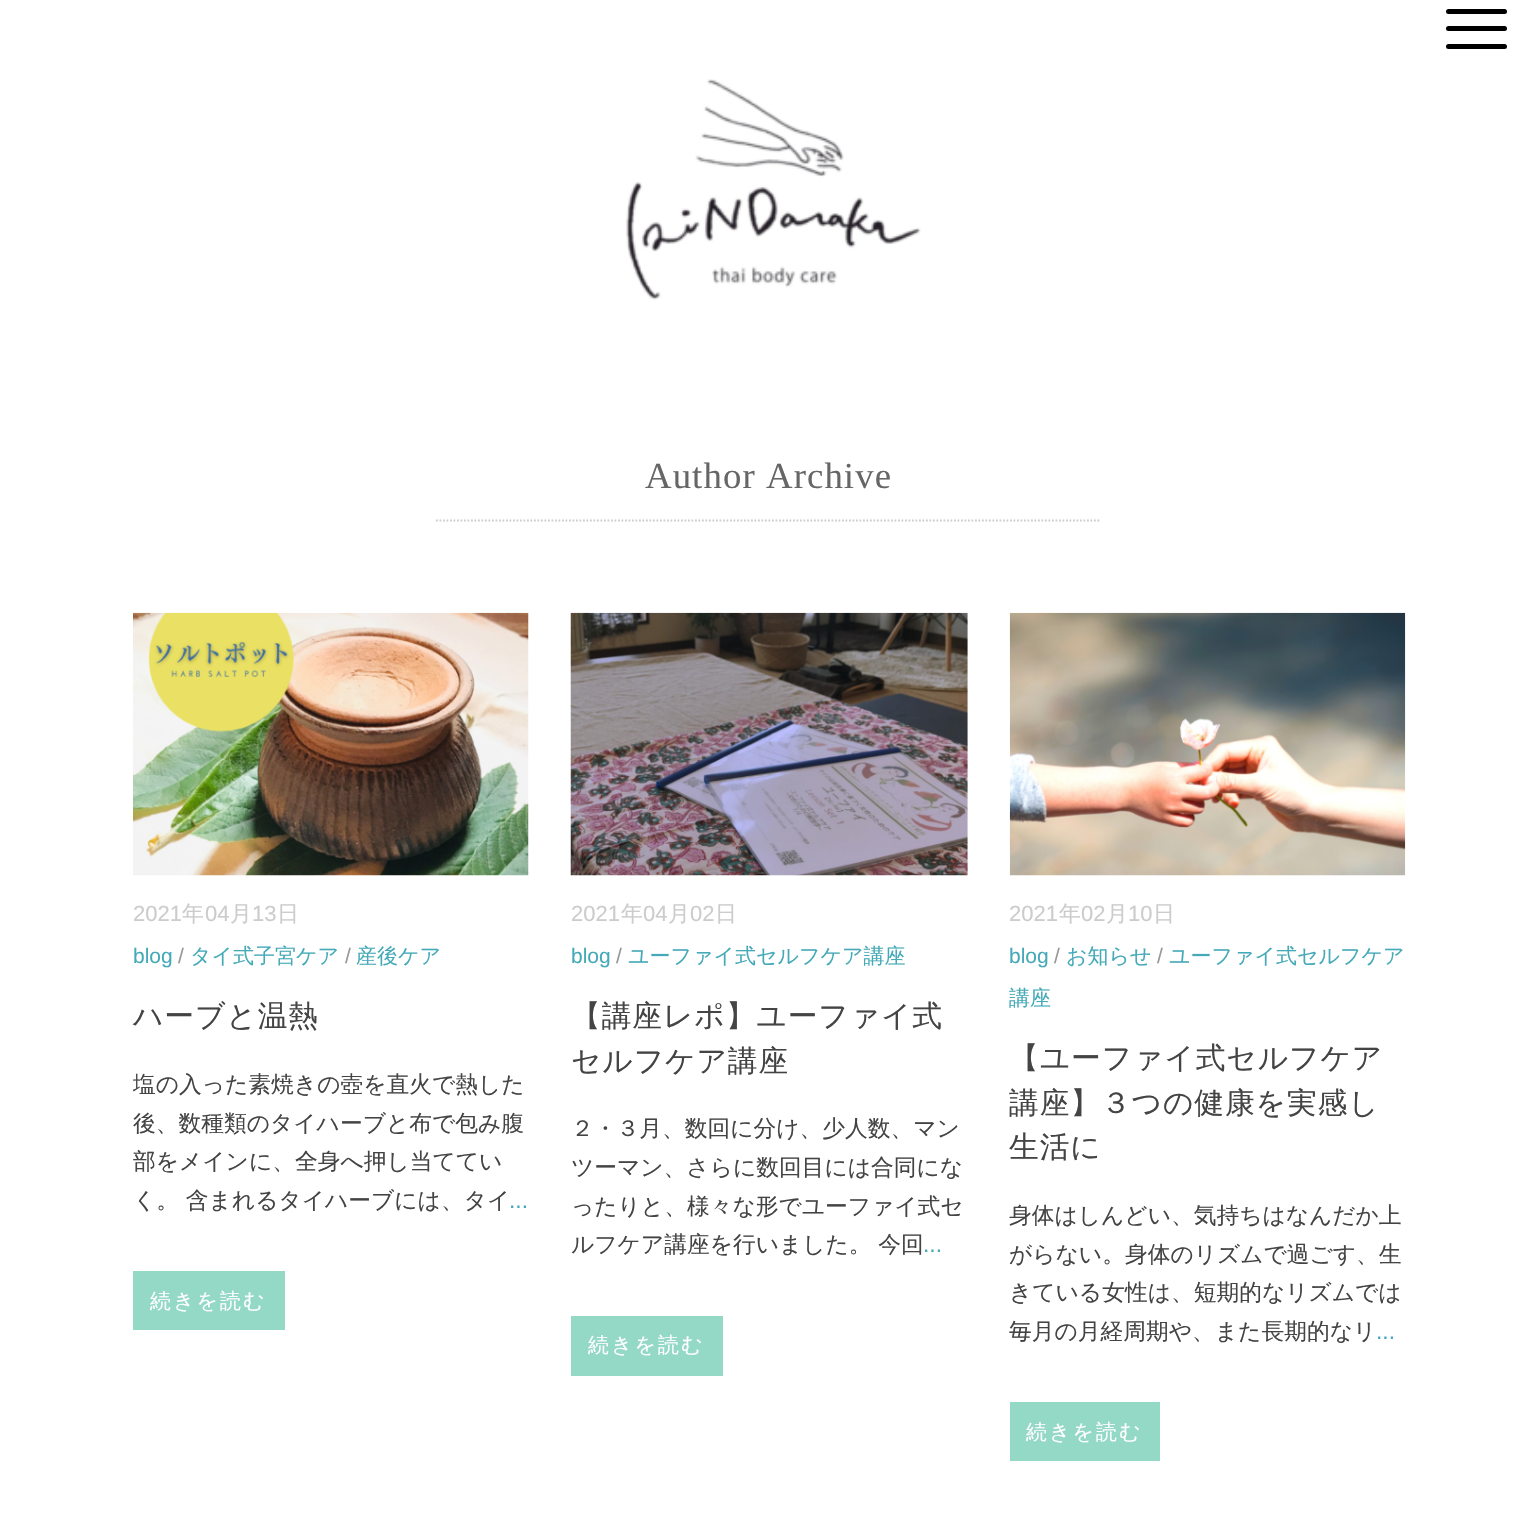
#include "include/core/SkBlurTypes.h"
#include "include/core/SkCanvas.h"
#include "include/core/SkData.h"
#include "include/core/SkFont.h"
#include "include/core/SkFontMgr.h"
#include "include/core/SkImage.h"
#include "include/core/SkMaskFilter.h"
#include "include/core/SkPaint.h"
#include "include/core/SkPathBuilder.h"
#include "include/core/SkTextBlob.h"
#include "include/effects/SkDashPathEffect.h"
#include "include/effects/SkGradientShader.h"
#include "include/utils/SkParsePath.h"

extern sk_sp<SkFontMgr> fontMgr;

static SkFont font(const char* family, int weight, float size, bool italic = false) {
    SkFontStyle style(weight, SkFontStyle::kNormal_Width,
        italic ? SkFontStyle::kItalic_Slant : SkFontStyle::kUpright_Slant);
    SkFont result(fontMgr->matchFamilyStyle(family, style), size);
    result.setSubpixel(true);
    return result;
}

static void drawLabel(SkCanvas* canvas, const char* s, float x, float y, const SkFont& font, SkColor color) {
    SkPaint ink(SkColor4f::FromColor(color));
    ink.setAntiAlias(true);
    canvas->drawString(s, x, y, font, ink);
}

static void drawTracked(SkCanvas* canvas, const char* s, float x, float y, const SkFont& font, const SkPaint& ink, float letter, float word) {
    std::vector<SkGlyphID> glyphs(font.countText(s, strlen(s), SkTextEncoding::kUTF8));
    std::vector<float> xs(glyphs.size());
    font.textToGlyphs(s, strlen(s), SkTextEncoding::kUTF8, glyphs);
    font.getXPos(glyphs, xs, x);
    float extra = 0;
    for (size_t i = 0; i < glyphs.size(); i++) {
        xs[i] += extra;
        extra += letter + word * (glyphs[i] == font.unicharToGlyph(' '));
    }
    canvas->drawTextBlob(SkTextBlob::MakeFromPosHGlyphs(glyphs, xs, y, font), 0, 0, ink);
}

static void fillRect(SkCanvas* canvas, float x, float y, float w, float h, SkColor color) {
    SkPaint ink(SkColor4f::FromColor(color));
    ink.setAntiAlias(true);
    canvas->drawRect(SkRect::MakeXYWH(x, y, w, h), ink);
}

static void fillRRect(SkCanvas* canvas, float x, float y, float w, float h, float radius, SkColor color) {
    SkPaint ink(SkColor4f::FromColor(color));
    ink.setAntiAlias(true);
    canvas->drawRoundRect(SkRect::MakeXYWH(x, y, w, h), radius, radius, ink);
}

static void drawPhoto(SkCanvas* canvas, const char* path, float x, float y, float w, float h) {
    auto image = SkImages::DeferredFromEncodedData(SkData::MakeFromFileName(path));
    canvas->drawImageRect(image, SkRect::MakeXYWH(x, y, w, h), SkSamplingOptions());
}

static SkPath parsePath(const char* data, bool evenOdd = false) {
    SkPath result = *SkParsePath::FromSVGString(data);
    if (evenOdd) result.setFillType(SkPathFillType::kEvenOdd);
    return result;
}

void draw(SkCanvas* canvas) {
    SkPaint paint;
    paint.setAntiAlias(true);
    canvas->clear(0xFFFFFFFF);
    fillRRect(canvas, 1446, 26, 61, 5, 2.5f, 0xFF000000);
    fillRRect(canvas, 1446, 9, 61, 5, 2.5f, 0xFF000000);
    fillRRect(canvas, 1446, 44, 61, 5, 2.5f, 0xFF000000);
    drawPhoto(canvas, "assets/img1.png", 626, 79, 295, 221);
    paint.setStroke(true);
    paint.setStrokeWidth(1.8f);
    paint.setColor(0xFFCCCCCC);
    paint.setPathEffect(SkDashPathEffect::Make({{1.75f, 1.75f}}, 0));
    canvas->drawPath(parsePath("M436 520.5H1101"), paint);
    paint.setPathEffect(nullptr);
    SkFont font1 = font("Liberation Serif", 400, 36.75f);
    paint.setStroke(false);
    paint.setColor(0xFF666666);
    drawTracked(canvas, "Author Archive", 645, 488, font1, paint, 1.1f, 0);
    drawPhoto(canvas, "assets/img2.png", 133, 612, 396, 264);
    SkFont font2 = font("Liberation Sans", 400, 22);
    drawLabel(canvas, "2021", 133, 921, font2, 0xFFCCCCCC);
    SkFont font3 = font("WenQuanYi Zen Hei", 500, 22);
    drawLabel(canvas, "年", 182, 921, font3, 0xFFCCCCCC);
    drawLabel(canvas, "04", 205, 921, font2, 0xFFCCCCCC);
    drawLabel(canvas, "月", 230, 921, font3, 0xFFCCCCCC);
    drawLabel(canvas, "13", 252, 921, font2, 0xFFCCCCCC);
    drawLabel(canvas, "日", 277, 921, font3, 0xFFCCCCCC);
    SkFont font4 = font("Liberation Sans", 400, 21);
    drawLabel(canvas, "blog", 133, 963, font4, 0xFF45AAB8);
    drawLabel(canvas, "/", 178, 963, font4, 0xFF999999);
    SkFont font5 = font("WenQuanYi Zen Hei", 500, 21);
    drawLabel(canvas, "タイ式子宮ケア", 190, 963, font5, 0xFF45AAB8);
    drawLabel(canvas, "/", 345, 963, font4, 0xFF999999);
    drawLabel(canvas, "産後ケア", 356, 963, font5, 0xFF45AAB8);
    SkFont font6 = font("WenQuanYi Zen Hei", 500, 29.75f);
    paint.setColor(0xFF444444);
    drawTracked(canvas, "ハーブと温熱", 133, 1026, font6, paint, 0.9f, 0);
    SkFont font7 = font("WenQuanYi Zen Hei", 500, 22.75f);
    drawLabel(canvas, "塩の入った素焼きの壺を直火で熱した", 133, 1092, font7, 0xFF444444);
    drawLabel(canvas, "後、数種類のタイハーブと布で包み腹", 133, 1131, font7, 0xFF444444);
    drawLabel(canvas, "部をメインに、全身へ押し当ててい", 133, 1169, font7, 0xFF444444);
    drawLabel(canvas, "く。 含まれるタイハーブには、タイ", 133, 1208, font7, 0xFF444444);
    SkFont font8 = font("Liberation Sans", 400, 22.75f);
    drawLabel(canvas, "...", 509, 1208, font8, 0xFF45AAB8);
    fillRect(canvas, 133, 1271, 152, 59, 0xFF94D8C6);
    paint.setColor(0xFFFFFFFF);
    drawTracked(canvas, "続きを読む", 150, 1308, font5, paint, 2, 0);
    drawPhoto(canvas, "assets/img3.png", 570, 612, 398, 264);
    drawLabel(canvas, "2021", 571, 921, font2, 0xFFCCCCCC);
    drawLabel(canvas, "年", 621, 921, font3, 0xFFCCCCCC);
    drawLabel(canvas, "04", 643, 921, font2, 0xFFCCCCCC);
    drawLabel(canvas, "月", 668, 921, font3, 0xFFCCCCCC);
    drawLabel(canvas, "02", 690, 921, font2, 0xFFCCCCCC);
    drawLabel(canvas, "日", 715, 921, font3, 0xFFCCCCCC);
    drawLabel(canvas, "blog", 571, 963, font4, 0xFF45AAB8);
    drawLabel(canvas, "/", 616, 963, font4, 0xFF999999);
    drawLabel(canvas, "ユーファイ式セルフケア講座", 628, 963, font5, 0xFF45AAB8);
    paint.setColor(0xFF444444);
    drawTracked(canvas, "【講座レポ】ユーファイ式", 571, 1026, font6, paint, 0.9f, 0);
    drawTracked(canvas, "セルフケア講座", 571, 1071, font6, paint, 0.9f, 0);
    drawLabel(canvas, "２・３月、数回に分け、少人数、マン", 571, 1136, font7, 0xFF444444);
    drawLabel(canvas, "ツーマン、さらに数回目には合同にな", 571, 1175, font7, 0xFF444444);
    drawLabel(canvas, "ったりと、様々な形でユーファイ式セ", 571, 1214, font7, 0xFF444444);
    drawLabel(canvas, "ルフケア講座を行いました。 今回", 571, 1252, font7, 0xFF444444);
    drawLabel(canvas, "...", 923, 1252, font8, 0xFF45AAB8);
    fillRect(canvas, 571, 1316, 152, 60, 0xFF94D8C6);
    paint.setColor(0xFFFFFFFF);
    drawTracked(canvas, "続きを読む", 588, 1352, font5, paint, 2, 0);
    drawPhoto(canvas, "assets/img4.png", 1009, 612, 397, 264);
    drawLabel(canvas, "2021", 1009, 921, font2, 0xFFCCCCCC);
    drawLabel(canvas, "年", 1059, 921, font3, 0xFFCCCCCC);
    drawLabel(canvas, "02", 1081, 921, font2, 0xFFCCCCCC);
    drawLabel(canvas, "月", 1106, 921, font3, 0xFFCCCCCC);
    drawLabel(canvas, "10", 1128, 921, font2, 0xFFCCCCCC);
    drawLabel(canvas, "日", 1153, 921, font3, 0xFFCCCCCC);
    drawLabel(canvas, "blog", 1009, 963, font4, 0xFF45AAB8);
    drawLabel(canvas, "/", 1054, 963, font4, 0xFF999999);
    drawLabel(canvas, "お知らせ", 1066, 963, font5, 0xFF45AAB8);
    drawLabel(canvas, "/", 1157, 963, font4, 0xFF999999);
    drawLabel(canvas, "ユーファイ式セルフケア", 1169, 963, font5, 0xFF45AAB8);
    drawLabel(canvas, "講座", 1009, 1005, font5, 0xFF45AAB8);
    paint.setColor(0xFF444444);
    drawTracked(canvas, "【ユーファイ式セルフケア", 1009, 1068, font6, paint, 0.9f, 0);
    drawTracked(canvas, "講座】３つの健康を実感し", 1009, 1113, font6, paint, 0.9f, 0);
    drawTracked(canvas, "生活に", 1009, 1157, font6, paint, 0.9f, 0);
    drawLabel(canvas, "身体はしんどい、気持ちはなんだか上", 1009, 1223, font7, 0xFF444444);
    drawLabel(canvas, "がらない。身体のリズムで過ごす、生", 1009, 1262, font7, 0xFF444444);
    drawLabel(canvas, "きている女性は、短期的なリズムでは", 1009, 1300, font7, 0xFF444444);
    drawLabel(canvas, "毎月の月経周期や、また長期的なリ", 1009, 1339, font7, 0xFF444444);
    drawLabel(canvas, "...", 1376, 1339, font8, 0xFF45AAB8);
    fillRect(canvas, 1010, 1402, 150, 59, 0xFF94D8C6);
    paint.setColor(0xFFFFFFFF);
    drawTracked(canvas, "続きを読む", 1026, 1439, font5, paint, 2, 0);
}
